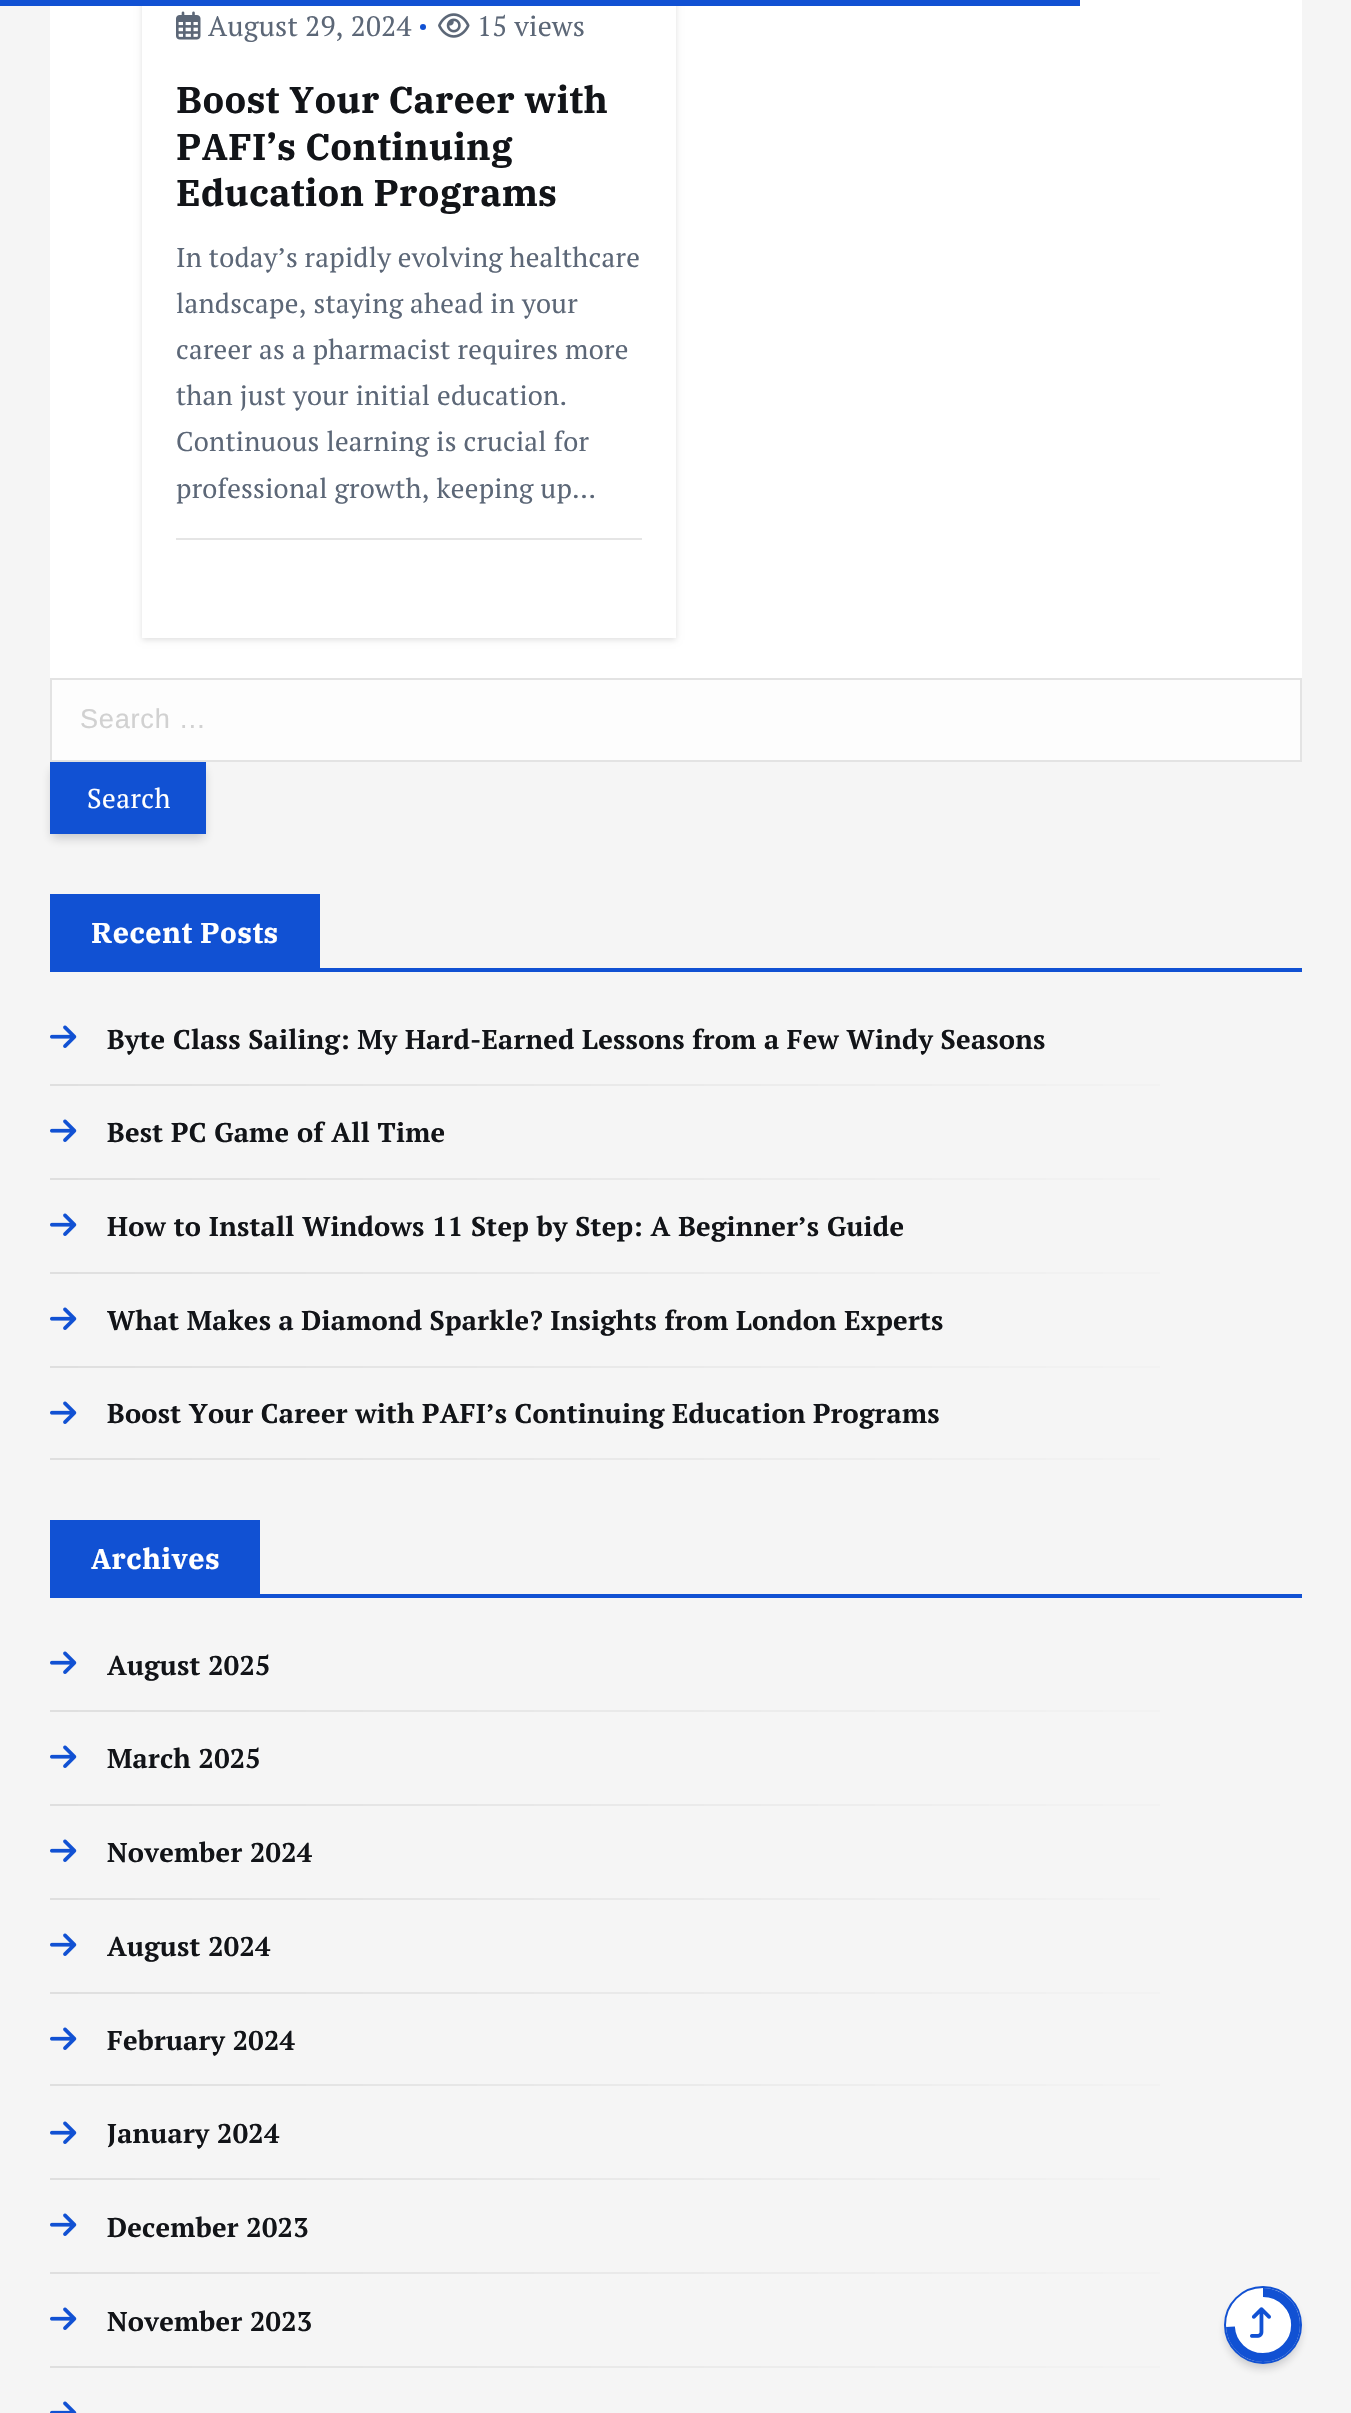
#include "include/core/SkBlurTypes.h"
#include "include/core/SkCanvas.h"
#include "include/core/SkData.h"
#include "include/core/SkFont.h"
#include "include/core/SkFontMgr.h"
#include "include/core/SkImage.h"
#include "include/core/SkMaskFilter.h"
#include "include/core/SkPaint.h"
#include "include/core/SkPathBuilder.h"
#include "include/core/SkTextBlob.h"
#include "include/effects/SkDashPathEffect.h"
#include "include/effects/SkGradientShader.h"
#include "include/utils/SkParsePath.h"

extern sk_sp<SkFontMgr> fontMgr;

static SkFont font(const char* family, int weight, float size, bool italic = false) {
    SkFontStyle style(weight, SkFontStyle::kNormal_Width,
        italic ? SkFontStyle::kItalic_Slant : SkFontStyle::kUpright_Slant);
    SkFont result(fontMgr->matchFamilyStyle(family, style), size);
    result.setSubpixel(true);
    return result;
}

static void drawTracked(SkCanvas* canvas, const char* s, float x, float y, const SkFont& font, const SkPaint& ink, float letter, float word) {
    std::vector<SkGlyphID> glyphs(font.countText(s, strlen(s), SkTextEncoding::kUTF8));
    std::vector<float> xs(glyphs.size());
    font.textToGlyphs(s, strlen(s), SkTextEncoding::kUTF8, glyphs);
    font.getXPos(glyphs, xs, x);
    float extra = 0;
    for (size_t i = 0; i < glyphs.size(); i++) {
        xs[i] += extra;
        extra += letter + word * (glyphs[i] == font.unicharToGlyph(' '));
    }
    canvas->drawTextBlob(SkTextBlob::MakeFromPosHGlyphs(glyphs, xs, y, font), 0, 0, ink);
}

static void fillRect(SkCanvas* canvas, float x, float y, float w, float h, SkColor color) {
    SkPaint ink(SkColor4f::FromColor(color));
    ink.setAntiAlias(true);
    canvas->drawRect(SkRect::MakeXYWH(x, y, w, h), ink);
}

static void drawPhoto(SkCanvas* canvas, const char* path, float x, float y, float w, float h) {
    auto image = SkImages::DeferredFromEncodedData(SkData::MakeFromFileName(path));
    canvas->drawImageRect(image, SkRect::MakeXYWH(x, y, w, h), SkSamplingOptions());
}

static SkPath parsePath(const char* data, bool evenOdd = false) {
    SkPath result = *SkParsePath::FromSVGString(data);
    if (evenOdd) result.setFillType(SkPathFillType::kEvenOdd);
    return result;
}

void draw(SkCanvas* canvas) {
    SkPaint paint;
    paint.setAntiAlias(true);
    canvas->clear(0xFFF5F5F5);
    fillRect(canvas, 50, 0, 1252, 678, 0xFFFFFFFF);
    canvas->save();
    canvas->clipPath(parsePath("M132 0H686V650H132ZM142-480H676V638H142Z", true), true);
    paint.setColor(0x1F000000);
    paint.setMaskFilter(SkMaskFilter::MakeBlur(kNormal_SkBlurStyle, 3));
    canvas->drawRect(SkRect::MakeXYWH(142, -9, 534, 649), paint);
    paint.setMaskFilter(nullptr);
    canvas->restore();
    fillRect(canvas, 0, 0, 1080, 6, 0xFF1151D3);
    drawPhoto(canvas, "assets/img1.png", 176, 11, 25, 29);
    SkFont font1 = font("PT Serif", 400, 28);
    paint.setColor(0xFF5C6777);
    drawTracked(canvas, "August 29, 2024", 208, 36, font1, paint, 0.27f, 0);
    paint.setColor(0xFF1151D3);
    canvas->drawCircle(423, 27, 3, paint);
    drawPhoto(canvas, "assets/img2.png", 438, 13, 32, 25);
    paint.setColor(0xFF5C6777);
    drawTracked(canvas, "15 views", 477, 36, font1, paint, 0.27f, 0);
    SkFont font2 = font("IBM Plex Serif", 700, 37.25f);
    paint.setColor(0xFF121418);
    drawTracked(canvas, "Boost Your Career with", 176, 113, font2, paint, 0.27f, 0);
    drawTracked(canvas, "PAFI’s Continuing", 176, 160, font2, paint, 0.27f, 0);
    drawTracked(canvas, "Education Programs", 176, 206, font2, paint, 0.27f, 0);
    SkFont font3 = font("PT Serif", 400, 27.15f);
    paint.setColor(0xFF5C6777);
    drawTracked(canvas, "In today’s rapidly evolving healthcare", 176, 267, font3, paint, 0.27f, -0.25f);
    drawTracked(canvas, "landscape, staying ahead in your", 176, 313, font3, paint, 0.27f, 0);
    drawTracked(canvas, "career as a pharmacist requires more", 176, 359, font3, paint, 0.27f, 0);
    drawTracked(canvas, "than just your initial education.", 176, 405, font3, paint, 0.27f, 0);
    drawTracked(canvas, "Continuous learning is crucial for", 176, 451, font3, paint, 0.27f, 0);
    drawTracked(canvas, "professional growth, keeping up…", 176, 498, font3, paint, 0.27f, 0);
    fillRect(canvas, 176, 538, 466, 2, 0xFFE5E5E5);
    paint.setColor(0xFFFDFDFD);
    canvas->drawRect(SkRect::MakeXYWH(51, 679, 1250, 82), paint);
    paint.setStroke(true);
    paint.setStrokeWidth(2);
    paint.setColor(0xFFE3E3E3);
    canvas->drawRect(SkRect::MakeXYWH(51, 679, 1250, 82), paint);
    SkFont font4 = font("Liberation Sans", 400, 27.15f);
    paint.setStroke(false);
    paint.setColor(0xFFD1D1D1);
    drawTracked(canvas, "Search …", 80, 728, font4, paint, 0.75f, 0);
    paint.setColor(0x33070A19);
    paint.setMaskFilter(SkMaskFilter::MakeBlur(kNormal_SkBlurStyle, 5));
    canvas->drawRect(SkRect::MakeXYWH(52, 770, 152, 68), paint);
    paint.setMaskFilter(nullptr);
    fillRect(canvas, 50, 762, 156, 72, 0xFF1151D3);
    paint.setColor(0xFFFFFFFF);
    drawTracked(canvas, "Search", 87, 808, font3, paint, 0.5f, 0);
    fillRect(canvas, 50, 968, 1252, 4, 0xFF1151D3);
    fillRect(canvas, 50, 894, 270, 74, 0xFF1151D3);
    SkFont font5 = font("IBM Plex Serif", 700, 28.75f);
    drawTracked(canvas, "Recent Posts", 91, 943, font5, paint, 0.5f, 0);
    drawPhoto(canvas, "assets/img3.png", 50, 1025, 27, 23);
    SkFont font6 = font("PT Serif", 700, 27.15f);
    paint.setColor(0xFF121418);
    drawTracked(canvas, "Byte Class Sailing: My Hard-Earned Lessons from a Few Windy Seasons", 107, 1049, font6, paint, 0.27f, -0.1f);
    {
        const SkColor colors[] = {0xFFDFDFDF, 0xFFF5F5F5};
        const float stops[] = {0, 1};
        const SkPoint ends[] = {{50, 1085}, {1302, 1085}};
        paint.setShader(SkGradientShader::MakeLinear(ends, colors, stops, 2, SkTileMode::kClamp));
        paint.setAlpha(255);
    }
    canvas->drawRect(SkRect::MakeXYWH(50, 1084, 1110, 2), paint);
    drawPhoto(canvas, "assets/img3.png", 50, 1119, 27, 23);
    paint.setShader(nullptr);
    paint.setColor(0xFF121418);
    drawTracked(canvas, "Best PC Game of All Time", 107, 1142, font6, paint, 0.27f, 0);
    {
        const SkColor colors[] = {0xFFDFDFDF, 0xFFF5F5F5};
        const float stops[] = {0, 1};
        const SkPoint ends[] = {{50, 1179}, {1302, 1179}};
        paint.setShader(SkGradientShader::MakeLinear(ends, colors, stops, 2, SkTileMode::kClamp));
        paint.setAlpha(255);
    }
    canvas->drawRect(SkRect::MakeXYWH(50, 1178, 1110, 2), paint);
    drawPhoto(canvas, "assets/img3.png", 50, 1213, 27, 23);
    paint.setShader(nullptr);
    paint.setColor(0xFF121418);
    drawTracked(canvas, "How to Install Windows 11 Step by Step: A Beginner’s Guide", 107, 1236, font6, paint, 0.27f, 0);
    {
        const SkColor colors[] = {0xFFDFDFDF, 0xFFF5F5F5};
        const float stops[] = {0, 1};
        const SkPoint ends[] = {{50, 1273}, {1302, 1273}};
        paint.setShader(SkGradientShader::MakeLinear(ends, colors, stops, 2, SkTileMode::kClamp));
        paint.setAlpha(255);
    }
    canvas->drawRect(SkRect::MakeXYWH(50, 1272, 1110, 2), paint);
    drawPhoto(canvas, "assets/img3.png", 50, 1307, 27, 23);
    paint.setShader(nullptr);
    paint.setColor(0xFF121418);
    drawTracked(canvas, "What Makes a Diamond Sparkle? Insights from London Experts", 107, 1330, font6, paint, 0.27f, -0.25f);
    {
        const SkColor colors[] = {0xFFDFDFDF, 0xFFF5F5F5};
        const float stops[] = {0, 1};
        const SkPoint ends[] = {{50, 1367}, {1302, 1367}};
        paint.setShader(SkGradientShader::MakeLinear(ends, colors, stops, 2, SkTileMode::kClamp));
        paint.setAlpha(255);
    }
    canvas->drawRect(SkRect::MakeXYWH(50, 1366, 1110, 2), paint);
    drawPhoto(canvas, "assets/img3.png", 50, 1401, 27, 23);
    paint.setShader(nullptr);
    paint.setColor(0xFF121418);
    drawTracked(canvas, "Boost Your Career with PAFI’s Continuing Education Programs", 107, 1423, font6, paint, 0.27f, -0.25f);
    {
        const SkColor colors[] = {0xFFDFDFDF, 0xFFF5F5F5};
        const float stops[] = {0, 1};
        const SkPoint ends[] = {{50, 1459}, {1302, 1459}};
        paint.setShader(SkGradientShader::MakeLinear(ends, colors, stops, 2, SkTileMode::kClamp));
        paint.setAlpha(255);
    }
    canvas->drawRect(SkRect::MakeXYWH(50, 1458, 1110, 2), paint);
    fillRect(canvas, 50, 1594, 1252, 4, 0xFF1151D3);
    fillRect(canvas, 50, 1520, 210, 74, 0xFF1151D3);
    paint.setShader(nullptr);
    paint.setColor(0xFFFFFFFF);
    drawTracked(canvas, "Archives", 91, 1569, font5, paint, 0.5f, 0);
    drawPhoto(canvas, "assets/img3.png", 50, 1651, 27, 23);
    paint.setColor(0xFF121418);
    drawTracked(canvas, "August 2025", 107, 1675, font6, paint, 0.27f, 0);
    {
        const SkColor colors[] = {0xFFDFDFDF, 0xFFF5F5F5};
        const float stops[] = {0, 1};
        const SkPoint ends[] = {{50, 1711}, {1302, 1711}};
        paint.setShader(SkGradientShader::MakeLinear(ends, colors, stops, 2, SkTileMode::kClamp));
        paint.setAlpha(255);
    }
    canvas->drawRect(SkRect::MakeXYWH(50, 1710, 1110, 2), paint);
    drawPhoto(canvas, "assets/img3.png", 50, 1745, 27, 23);
    paint.setShader(nullptr);
    paint.setColor(0xFF121418);
    drawTracked(canvas, "March 2025", 107, 1768, font6, paint, 0.27f, 0);
    {
        const SkColor colors[] = {0xFFDFDFDF, 0xFFF5F5F5};
        const float stops[] = {0, 1};
        const SkPoint ends[] = {{50, 1805}, {1302, 1805}};
        paint.setShader(SkGradientShader::MakeLinear(ends, colors, stops, 2, SkTileMode::kClamp));
        paint.setAlpha(255);
    }
    canvas->drawRect(SkRect::MakeXYWH(50, 1804, 1110, 2), paint);
    drawPhoto(canvas, "assets/img3.png", 50, 1839, 27, 23);
    paint.setShader(nullptr);
    paint.setColor(0xFF121418);
    drawTracked(canvas, "November 2024", 107, 1862, font6, paint, 0.27f, 0);
    {
        const SkColor colors[] = {0xFFDFDFDF, 0xFFF5F5F5};
        const float stops[] = {0, 1};
        const SkPoint ends[] = {{50, 1899}, {1302, 1899}};
        paint.setShader(SkGradientShader::MakeLinear(ends, colors, stops, 2, SkTileMode::kClamp));
        paint.setAlpha(255);
    }
    canvas->drawRect(SkRect::MakeXYWH(50, 1898, 1110, 2), paint);
    drawPhoto(canvas, "assets/img3.png", 50, 1933, 27, 23);
    paint.setShader(nullptr);
    paint.setColor(0xFF121418);
    drawTracked(canvas, "August 2024", 107, 1956, font6, paint, 0.27f, 0);
    {
        const SkColor colors[] = {0xFFDFDFDF, 0xFFF5F5F5};
        const float stops[] = {0, 1};
        const SkPoint ends[] = {{50, 1993}, {1302, 1993}};
        paint.setShader(SkGradientShader::MakeLinear(ends, colors, stops, 2, SkTileMode::kClamp));
        paint.setAlpha(255);
    }
    canvas->drawRect(SkRect::MakeXYWH(50, 1992, 1110, 2), paint);
    drawPhoto(canvas, "assets/img3.png", 50, 2027, 27, 23);
    paint.setShader(nullptr);
    paint.setColor(0xFF121418);
    drawTracked(canvas, "February 2024", 107, 2050, font6, paint, 0.27f, 0);
    {
        const SkColor colors[] = {0xFFDFDFDF, 0xFFF5F5F5};
        const float stops[] = {0, 1};
        const SkPoint ends[] = {{50, 2085}, {1302, 2085}};
        paint.setShader(SkGradientShader::MakeLinear(ends, colors, stops, 2, SkTileMode::kClamp));
        paint.setAlpha(255);
    }
    canvas->drawRect(SkRect::MakeXYWH(50, 2084, 1110, 2), paint);
    drawPhoto(canvas, "assets/img3.png", 50, 2121, 27, 23);
    paint.setShader(nullptr);
    paint.setColor(0xFF121418);
    drawTracked(canvas, "January 2024", 107, 2143, font6, paint, 0.27f, 0);
    {
        const SkColor colors[] = {0xFFDFDFDF, 0xFFF5F5F5};
        const float stops[] = {0, 1};
        const SkPoint ends[] = {{50, 2179}, {1302, 2179}};
        paint.setShader(SkGradientShader::MakeLinear(ends, colors, stops, 2, SkTileMode::kClamp));
        paint.setAlpha(255);
    }
    canvas->drawRect(SkRect::MakeXYWH(50, 2178, 1110, 2), paint);
    drawPhoto(canvas, "assets/img3.png", 50, 2213, 27, 23);
    paint.setShader(nullptr);
    paint.setColor(0xFF121418);
    drawTracked(canvas, "December 2023", 107, 2237, font6, paint, 0.27f, 0);
    {
        const SkColor colors[] = {0xFFDFDFDF, 0xFFF5F5F5};
        const float stops[] = {0, 1};
        const SkPoint ends[] = {{50, 2273}, {1302, 2273}};
        paint.setShader(SkGradientShader::MakeLinear(ends, colors, stops, 2, SkTileMode::kClamp));
        paint.setAlpha(255);
    }
    canvas->drawRect(SkRect::MakeXYWH(50, 2272, 1110, 2), paint);
    drawPhoto(canvas, "assets/img3.png", 50, 2307, 27, 23);
    paint.setShader(nullptr);
    paint.setColor(0xFF121418);
    drawTracked(canvas, "November 2023", 107, 2331, font6, paint, 0.27f, 0);
    {
        const SkColor colors[] = {0xFFDFDFDF, 0xFFF5F5F5};
        const float stops[] = {0, 1};
        const SkPoint ends[] = {{50, 2367}, {1302, 2367}};
        paint.setShader(SkGradientShader::MakeLinear(ends, colors, stops, 2, SkTileMode::kClamp));
        paint.setAlpha(255);
    }
    canvas->drawRect(SkRect::MakeXYWH(50, 2366, 1110, 2), paint);
    drawPhoto(canvas, "assets/img4.png", 50, 2401, 27, 12);
    paint.setShader(nullptr);
    paint.setColor(0x33070A19);
    paint.setMaskFilter(SkMaskFilter::MakeBlur(kNormal_SkBlurStyle, 5));
    canvas->drawRoundRect(SkRect::MakeXYWH(1226, 2294, 74, 74), 37, 37, paint);
    paint.setMaskFilter(nullptr);
    paint.setColor(0xFFFFFFFF);
    canvas->drawCircle(1263, 2325, 37, paint);
    canvas->save();
    canvas->clipPath(parsePath("M1263 2288C1283.5 2288 1300 2304.5 1300 2325C1300 2345.5 1283.5 2362 1263 2362C1242.5 2362 1226 2345.5 1226 2325C1226 2304.5 1242.5 2288 1263 2288Z"), true);
    paint.setStroke(true);
    paint.setStrokeWidth(14.8f);
    paint.setColor(0xFF1151D3);
    canvas->drawPath(parsePath("M1263 2289.5C1282.5 2289.5 1298.5 2305.5 1298.5 2325C1298.5 2344.5 1282.5 2360.5 1263 2360.5C1244 2360.5 1228.5 2346 1227.5 2327"), paint);
    canvas->restore();
    paint.setStrokeWidth(2);
    canvas->drawCircle(1263, 2325, 38, paint);
    drawPhoto(canvas, "assets/img5.png", 1250, 2307, 21, 31);
}
